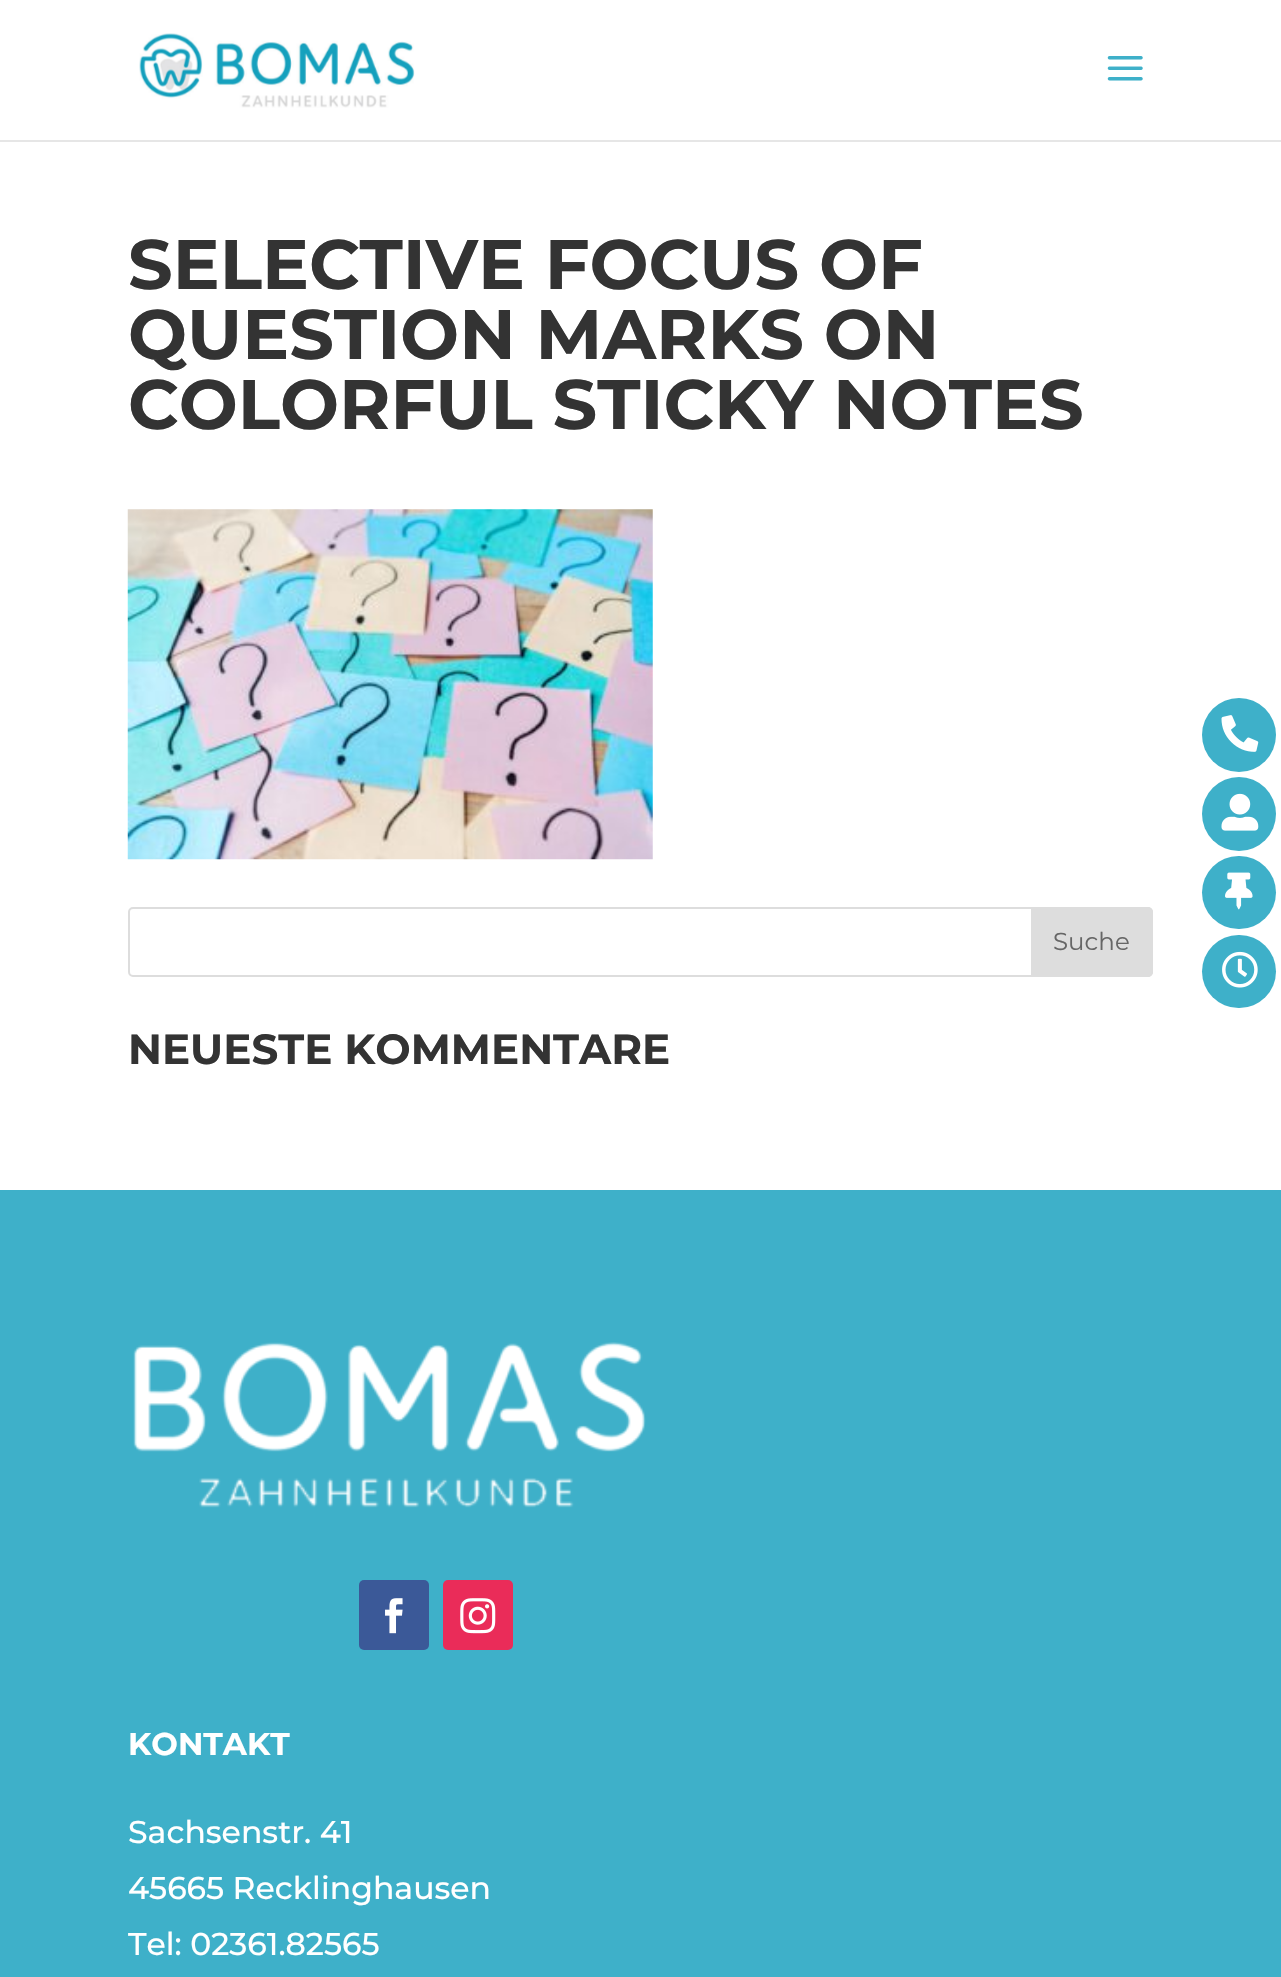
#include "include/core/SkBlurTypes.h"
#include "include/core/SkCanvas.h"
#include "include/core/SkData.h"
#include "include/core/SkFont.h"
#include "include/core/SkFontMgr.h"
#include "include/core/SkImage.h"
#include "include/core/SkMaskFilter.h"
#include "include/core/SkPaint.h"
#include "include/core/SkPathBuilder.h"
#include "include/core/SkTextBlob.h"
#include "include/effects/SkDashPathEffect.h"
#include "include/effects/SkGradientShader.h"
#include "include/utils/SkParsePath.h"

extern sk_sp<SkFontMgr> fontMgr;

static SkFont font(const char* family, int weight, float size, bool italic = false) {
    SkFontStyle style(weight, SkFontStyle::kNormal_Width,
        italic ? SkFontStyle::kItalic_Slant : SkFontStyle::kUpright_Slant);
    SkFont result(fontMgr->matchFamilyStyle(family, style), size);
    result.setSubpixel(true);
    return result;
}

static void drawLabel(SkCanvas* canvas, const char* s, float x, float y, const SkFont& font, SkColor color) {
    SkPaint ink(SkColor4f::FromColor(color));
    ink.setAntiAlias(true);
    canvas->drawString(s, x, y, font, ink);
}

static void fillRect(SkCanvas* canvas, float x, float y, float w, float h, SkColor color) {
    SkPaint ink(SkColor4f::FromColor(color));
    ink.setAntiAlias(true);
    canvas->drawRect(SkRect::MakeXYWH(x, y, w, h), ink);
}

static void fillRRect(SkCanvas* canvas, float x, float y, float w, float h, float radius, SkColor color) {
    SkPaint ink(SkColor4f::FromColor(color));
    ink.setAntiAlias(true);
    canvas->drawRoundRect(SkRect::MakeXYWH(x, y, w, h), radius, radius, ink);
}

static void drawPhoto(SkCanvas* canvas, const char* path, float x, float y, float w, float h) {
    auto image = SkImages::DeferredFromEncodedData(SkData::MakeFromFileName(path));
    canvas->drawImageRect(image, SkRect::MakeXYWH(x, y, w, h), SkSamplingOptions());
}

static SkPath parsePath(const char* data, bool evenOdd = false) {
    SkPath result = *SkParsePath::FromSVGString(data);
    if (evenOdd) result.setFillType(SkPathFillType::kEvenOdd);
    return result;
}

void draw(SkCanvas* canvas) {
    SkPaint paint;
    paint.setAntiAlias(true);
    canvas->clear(0xFFFFFFFF);
    fillRect(canvas, 0, 140, 1281, 2, 0xFFE6E6E6);
    drawPhoto(canvas, "assets/img1.png", 139, 33, 276, 75);
    drawPhoto(canvas, "assets/img2.png", 1107, 56, 36, 25);
    SkFont font1 = font("Montserrat", 700, 70);
    drawLabel(canvas, "SELECTIVE FOCUS OF", 128, 289, font1, 0xFF333333);
    drawLabel(canvas, "QUESTION MARKS ON", 128, 359, font1, 0xFF333333);
    drawLabel(canvas, "COLORFUL STICKY NOTES", 128, 429, font1, 0xFF333333);
    drawPhoto(canvas, "assets/img3.png", 127, 509, 526, 351);
    paint.setStroke(true);
    paint.setStrokeWidth(2);
    paint.setColor(0xFFDDDDDD);
    canvas->drawRoundRect(SkRect::MakeXYWH(129, 908, 1023, 68), 4, 4, paint);
    paint.setStroke(false);
    canvas->drawPath(parsePath("M1032 908H1148C1150 908 1152 910 1152 912V972C1152 974 1150 976 1148 976H1032Z"), paint);
    paint.setStroke(true);
    canvas->drawPath(parsePath("M1032 908H1148C1150 908 1152 910 1152 912V972C1152 974 1150 976 1148 976H1032Z"), paint);
    SkFont font2 = font("Montserrat", 400, 24.5f);
    drawLabel(canvas, "Suche", 1053, 950, font2, 0xFF666666);
    SkFont font3 = font("Montserrat", 700, 42);
    drawLabel(canvas, "NEUESTE KOMMENTARE", 128, 1064, font3, 0xFF333333);
    fillRect(canvas, 0, 1190, 1281, 787, 0xFF3EB0C9);
    drawPhoto(canvas, "assets/img4.png", 133, 1342, 513, 166);
    fillRRect(canvas, 359, 1580, 70, 70, 5, 0xFF3B5998);
    drawPhoto(canvas, "assets/img5.png", 385, 1598, 18, 36);
    fillRRect(canvas, 443, 1580, 70, 70, 5, 0xFFEA2C59);
    drawPhoto(canvas, "assets/img6.png", 460, 1598, 36, 36);
    SkFont font4 = font("Montserrat", 700, 31.5f);
    drawLabel(canvas, "KONTAKT", 128, 1755, font4, 0xFFFFFFFF);
    SkFont font5 = font("Montserrat", 500, 31.5f);
    drawLabel(canvas, "Sachsenstr. 41", 128, 1843, font5, 0xFFFFFFFF);
    drawLabel(canvas, "45665 Recklinghausen", 128, 1899, font5, 0xFFFFFFFF);
    drawLabel(canvas, "Tel: 02361.82565", 128, 1955, font5, 0xFFFFFFFF);
    paint.setStroke(false);
    paint.setColor(0xFF3EB0C9);
    canvas->drawCircle(1239, 735, 37, paint);
    drawPhoto(canvas, "assets/img7.png", 1221, 715, 38, 37);
    canvas->drawCircle(1239, 814, 37, paint);
    drawPhoto(canvas, "assets/img8.png", 1221, 793, 38, 38);
    fillRRect(canvas, 1202, 856, 74, 73, 36.5f, 0xFF3EB0C9);
    drawPhoto(canvas, "assets/img9.png", 1225, 872, 28, 38);
    fillRRect(canvas, 1202, 935, 74, 73, 36.5f, 0xFF3EB0C9);
    drawPhoto(canvas, "assets/img10.png", 1222, 951, 36, 37);
}
